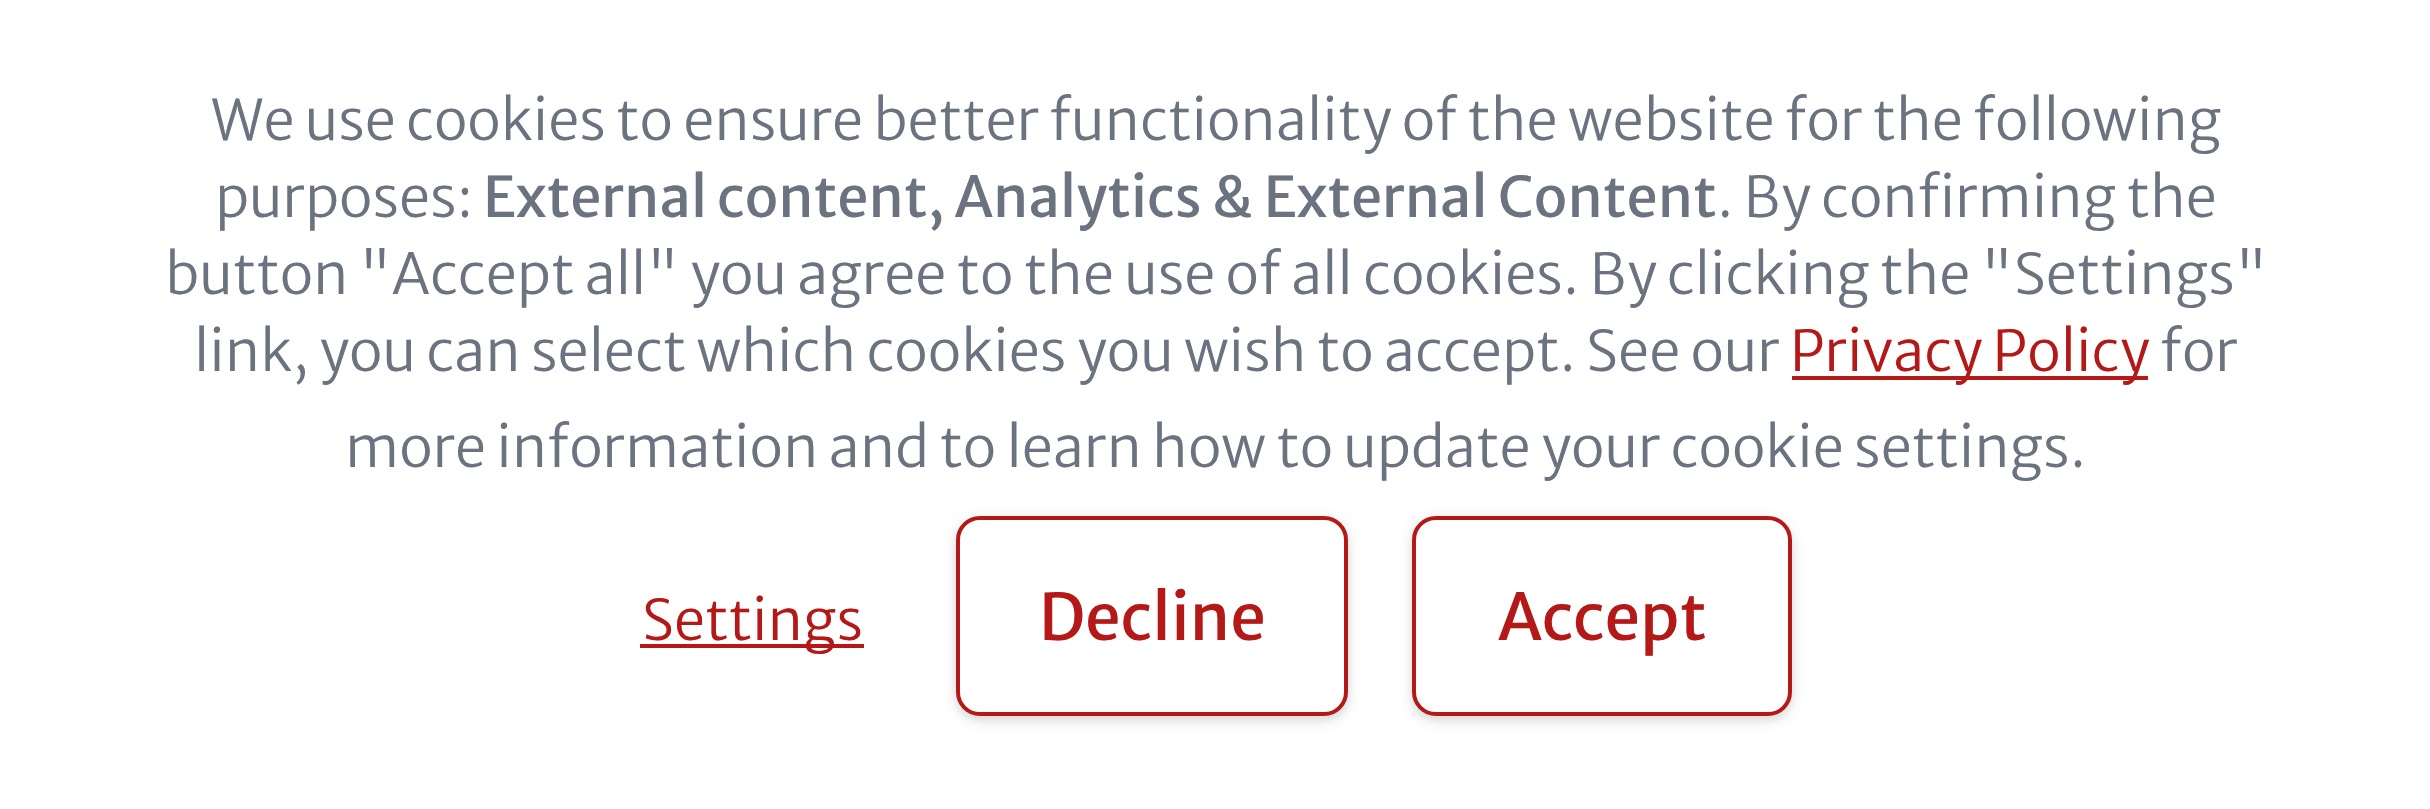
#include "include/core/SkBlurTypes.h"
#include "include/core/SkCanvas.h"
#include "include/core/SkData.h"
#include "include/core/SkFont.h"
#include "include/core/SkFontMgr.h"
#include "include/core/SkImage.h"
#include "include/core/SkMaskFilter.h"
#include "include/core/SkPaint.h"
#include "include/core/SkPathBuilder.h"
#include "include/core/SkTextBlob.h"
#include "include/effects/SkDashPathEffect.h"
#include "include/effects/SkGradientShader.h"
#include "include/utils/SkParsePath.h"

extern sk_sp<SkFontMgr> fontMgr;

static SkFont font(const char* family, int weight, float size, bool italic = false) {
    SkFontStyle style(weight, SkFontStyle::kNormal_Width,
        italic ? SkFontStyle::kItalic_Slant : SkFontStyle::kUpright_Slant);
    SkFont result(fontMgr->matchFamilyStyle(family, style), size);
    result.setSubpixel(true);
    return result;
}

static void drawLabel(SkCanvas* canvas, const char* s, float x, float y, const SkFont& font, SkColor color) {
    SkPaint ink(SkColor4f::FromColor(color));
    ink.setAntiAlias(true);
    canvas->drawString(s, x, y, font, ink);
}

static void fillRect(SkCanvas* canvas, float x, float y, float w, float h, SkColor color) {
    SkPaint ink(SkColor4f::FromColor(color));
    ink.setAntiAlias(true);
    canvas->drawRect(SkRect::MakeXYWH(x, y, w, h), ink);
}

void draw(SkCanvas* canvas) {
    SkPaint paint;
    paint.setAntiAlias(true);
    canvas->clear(0xFFFFFFFF);
    SkFont font1 = font("Merriweather Sans", 300, 56);
    drawLabel(canvas, "We use cookies to ensure better functionality of the website for the following", 211, 140, font1, 0xFF6B7280);
    drawLabel(canvas, "purposes:", 215, 217, font1, 0xFF6B7280);
    SkFont font2 = font("Merriweather Sans", 400, 56);
    drawLabel(canvas, "External content, Analytics & External Content", 483, 217, font2, 0xFF6B7280);
    drawLabel(canvas, ". By confirming the", 1717, 217, font1, 0xFF6B7280);
    drawLabel(canvas, "button \"Accept all\" you agree to the use of all cookies. By clicking the \"Settings\"", 165, 294, font1, 0xFF6B7280);
    drawLabel(canvas, "link, you can select which cookies you wish to accept. See our", 194, 371, font1, 0xFF6B7280);
    fillRect(canvas, 1792, 376, 356, 4, 0xFFB41918);
    drawLabel(canvas, "Privacy Policy", 1790, 371, font1, 0xFFB41918);
    drawLabel(canvas, "for", 2160, 371, font1, 0xFF6B7280);
    drawLabel(canvas, "more information and to learn how to update your cookie settings.", 345, 467, font1, 0xFF6B7280);
    fillRect(canvas, 640, 644, 224, 4, 0xFFB41918);
    drawLabel(canvas, "Settings", 642, 640, font1, 0xFFB41918);
    paint.setColor(0x0F000000);
    paint.setMaskFilter(SkMaskFilter::MakeBlur(kNormal_SkBlurStyle, 4));
    canvas->drawRoundRect(SkRect::MakeXYWH(956, 520, 392, 200), 24, 24, paint);
    paint.setMaskFilter(nullptr);
    paint.setColor(0x1A000000);
    paint.setMaskFilter(SkMaskFilter::MakeBlur(kNormal_SkBlurStyle, 6));
    canvas->drawRoundRect(SkRect::MakeXYWH(956, 520, 392, 200), 24, 24, paint);
    paint.setMaskFilter(nullptr);
    paint.setColor(0xFFFFFFFF);
    canvas->drawRoundRect(SkRect::MakeXYWH(958, 518, 388, 196), 22, 22, paint);
    paint.setStroke(true);
    paint.setStrokeWidth(4);
    paint.setColor(0xFFB41918);
    canvas->drawRoundRect(SkRect::MakeXYWH(958, 518, 388, 196), 22, 22, paint);
    SkFont font3 = font("Merriweather Sans", 400, 64);
    drawLabel(canvas, "Decline", 1039, 640, font3, 0xFFB41918);
    paint.setStroke(false);
    paint.setColor(0x0F000000);
    paint.setMaskFilter(SkMaskFilter::MakeBlur(kNormal_SkBlurStyle, 4));
    canvas->drawRoundRect(SkRect::MakeXYWH(1412, 520, 380, 200), 24, 24, paint);
    paint.setMaskFilter(nullptr);
    paint.setColor(0x1A000000);
    paint.setMaskFilter(SkMaskFilter::MakeBlur(kNormal_SkBlurStyle, 6));
    canvas->drawRoundRect(SkRect::MakeXYWH(1412, 520, 380, 200), 24, 24, paint);
    paint.setMaskFilter(nullptr);
    paint.setColor(0xFFFFFFFF);
    canvas->drawRoundRect(SkRect::MakeXYWH(1414, 518, 376, 196), 22, 22, paint);
    paint.setStroke(true);
    paint.setColor(0xFFB41918);
    canvas->drawRoundRect(SkRect::MakeXYWH(1414, 518, 376, 196), 22, 22, paint);
    drawLabel(canvas, "Accept", 1498, 640, font3, 0xFFB41918);
}
